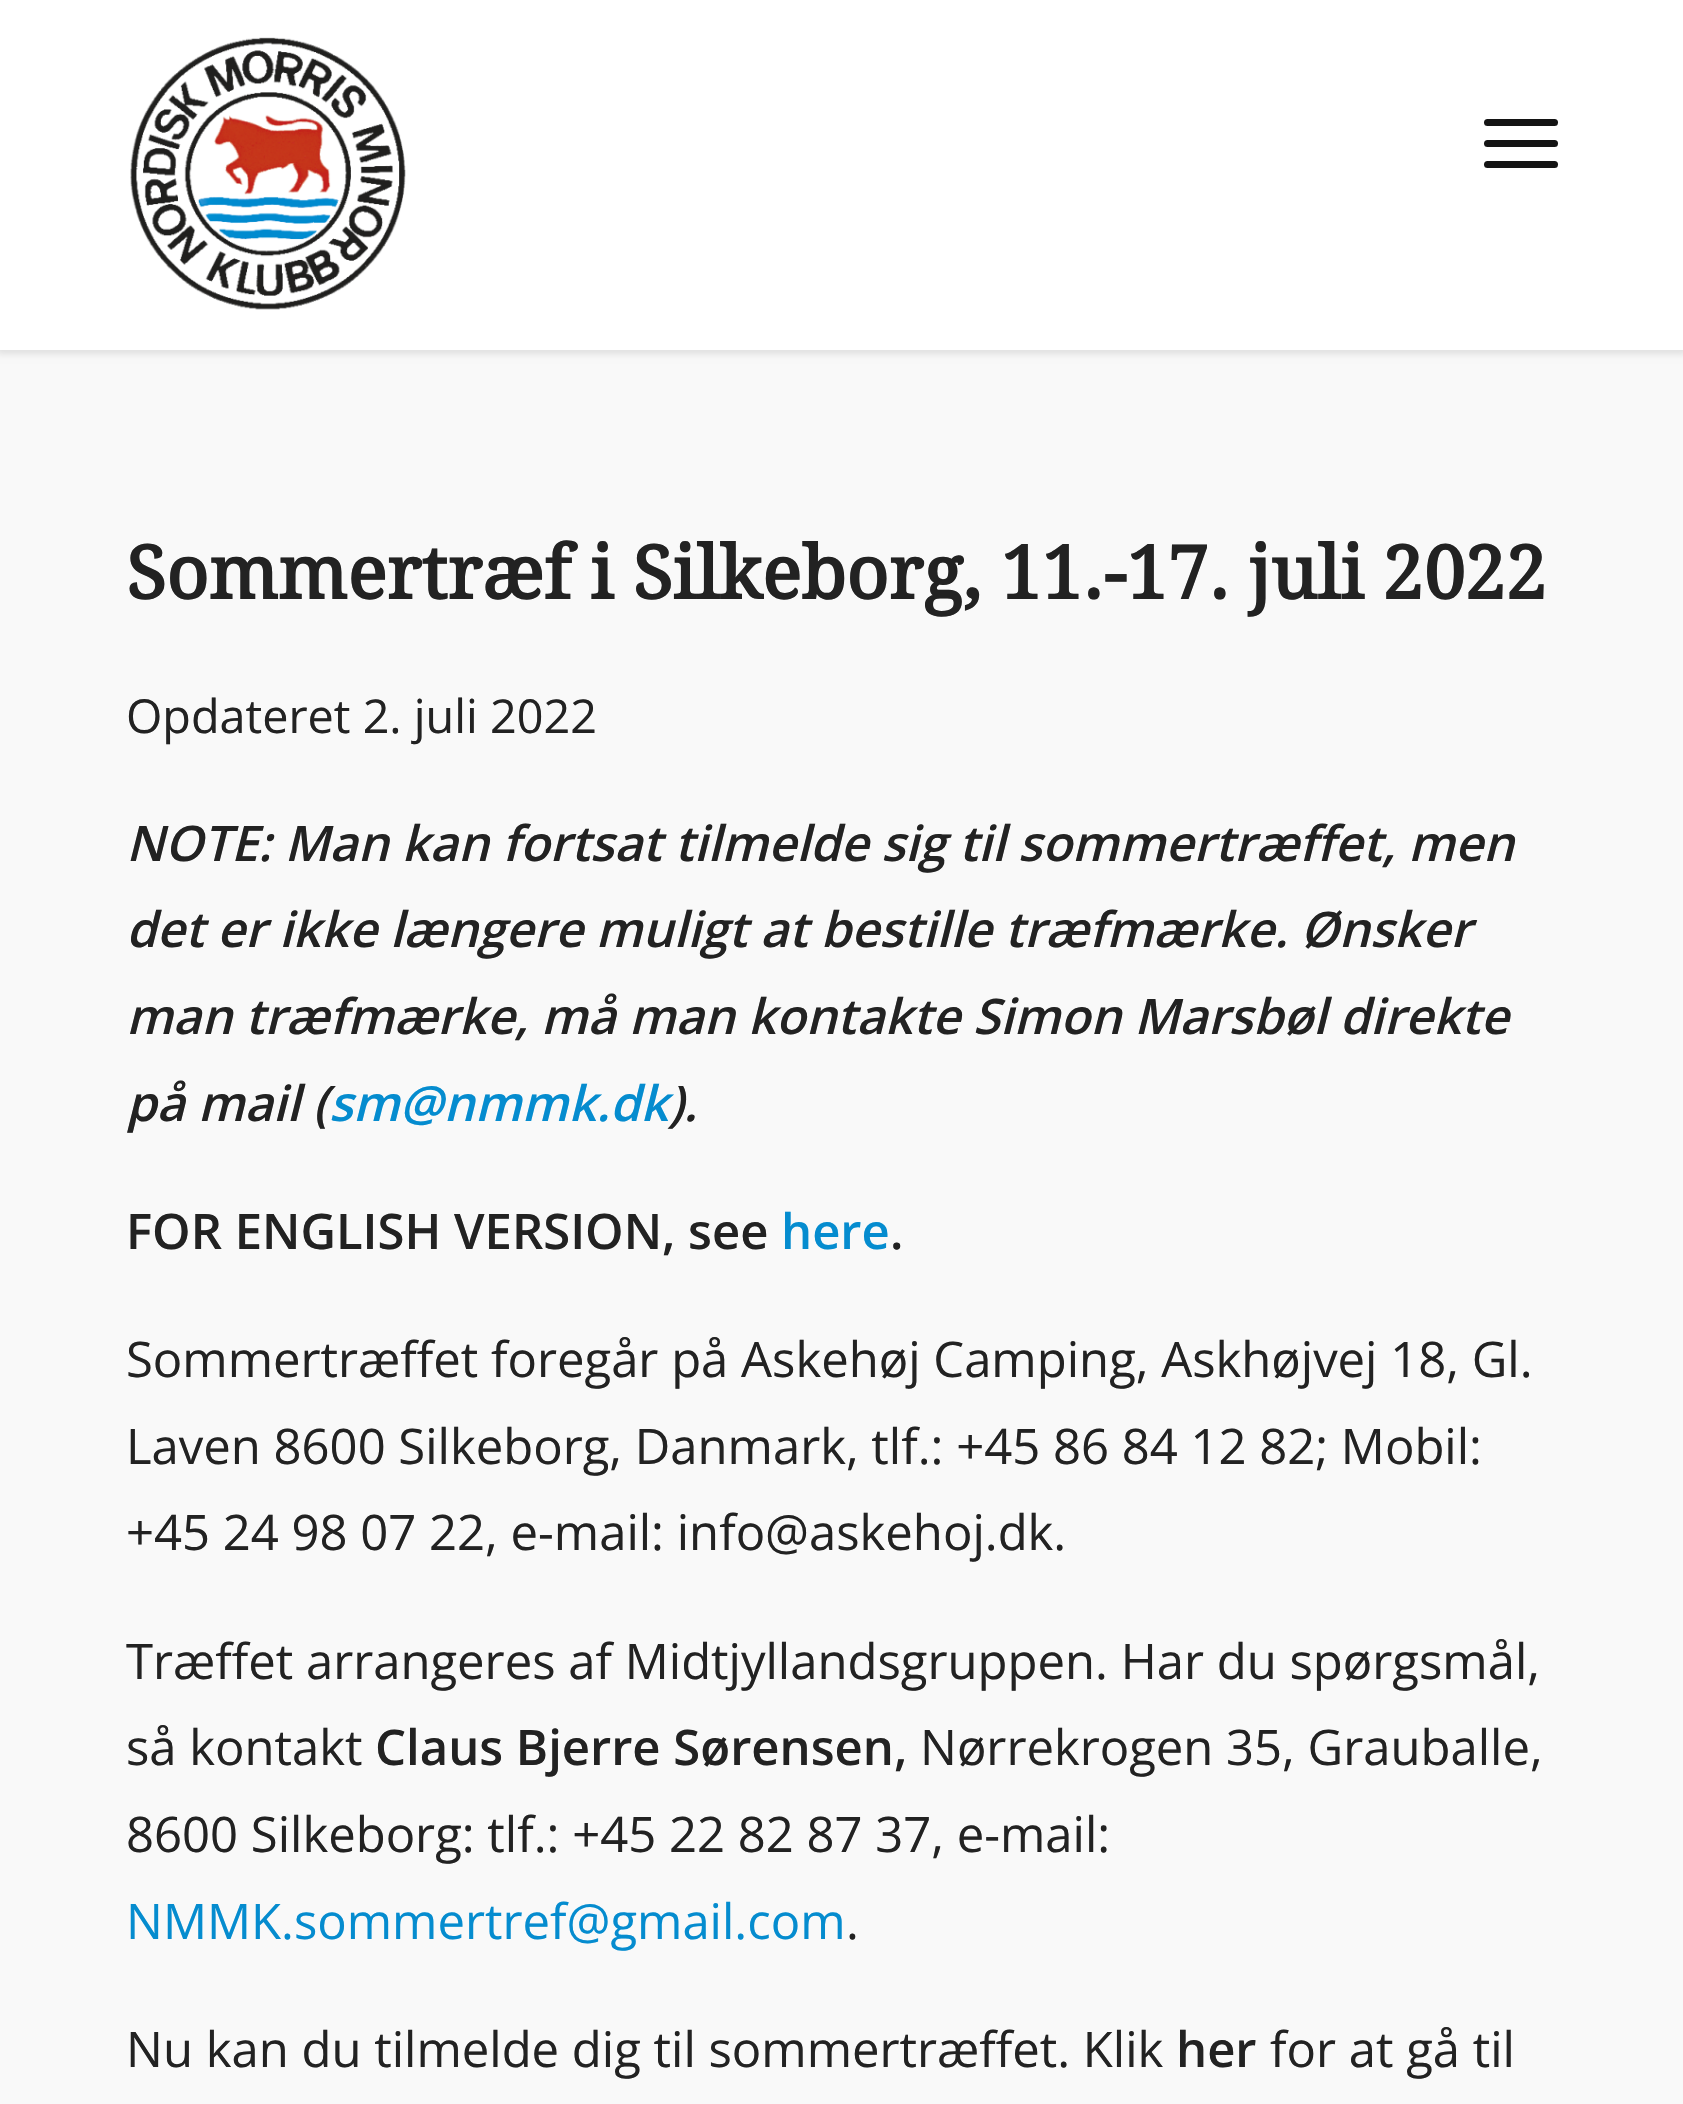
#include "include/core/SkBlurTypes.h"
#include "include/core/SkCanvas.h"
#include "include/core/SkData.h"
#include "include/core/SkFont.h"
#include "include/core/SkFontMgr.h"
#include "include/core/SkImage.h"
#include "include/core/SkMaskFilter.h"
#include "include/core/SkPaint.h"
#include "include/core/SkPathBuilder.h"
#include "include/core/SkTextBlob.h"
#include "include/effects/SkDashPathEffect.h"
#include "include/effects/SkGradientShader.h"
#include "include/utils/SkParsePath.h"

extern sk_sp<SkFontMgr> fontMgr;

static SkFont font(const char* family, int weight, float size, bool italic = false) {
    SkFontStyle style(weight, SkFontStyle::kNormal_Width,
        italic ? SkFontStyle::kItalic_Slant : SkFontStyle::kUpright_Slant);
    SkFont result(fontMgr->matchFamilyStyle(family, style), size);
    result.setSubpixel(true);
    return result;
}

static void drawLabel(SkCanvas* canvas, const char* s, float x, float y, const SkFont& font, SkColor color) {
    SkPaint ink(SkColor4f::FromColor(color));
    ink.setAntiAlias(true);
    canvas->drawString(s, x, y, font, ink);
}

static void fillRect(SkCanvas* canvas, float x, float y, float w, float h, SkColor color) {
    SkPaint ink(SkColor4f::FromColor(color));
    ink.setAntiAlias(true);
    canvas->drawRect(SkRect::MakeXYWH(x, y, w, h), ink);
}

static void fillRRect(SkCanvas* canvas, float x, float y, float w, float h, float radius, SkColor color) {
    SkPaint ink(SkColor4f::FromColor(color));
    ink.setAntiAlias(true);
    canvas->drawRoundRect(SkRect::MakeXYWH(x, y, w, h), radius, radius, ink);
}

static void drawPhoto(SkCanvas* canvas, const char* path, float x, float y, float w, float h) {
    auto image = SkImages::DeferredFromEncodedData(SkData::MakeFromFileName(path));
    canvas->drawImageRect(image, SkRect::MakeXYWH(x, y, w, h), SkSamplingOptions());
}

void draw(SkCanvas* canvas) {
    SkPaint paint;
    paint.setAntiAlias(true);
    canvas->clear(0xFFF9F9F9);
    paint.setColor(0x1A000000);
    paint.setMaskFilter(SkMaskFilter::MakeBlur(kNormal_SkBlurStyle, 3.5f));
    canvas->drawRect(SkRect::MakeXYWH(-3, -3, 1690, 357), paint);
    paint.setMaskFilter(nullptr);
    fillRect(canvas, 0, 0, 1683, 350, 0xFFFFFFFF);
    drawPhoto(canvas, "assets/img1.png", 130, 37, 276, 273);
    fillRRect(canvas, 1484, 140, 74, 7, 3.5f, 0xFF141414);
    fillRRect(canvas, 1484, 119, 74, 7, 3.5f, 0xFF141414);
    fillRRect(canvas, 1484, 161, 74, 7, 3.5f, 0xFF141414);
    SkFont font1 = font("Droid Serif", 700, 73.5f);
    drawLabel(canvas, "Sommertræf i Silkeborg, 11.-17. juli 2022", 126, 599, font1, 0xFF222222);
    SkFont font2 = font("Open Sans", 400, 46.75f);
    drawLabel(canvas, "Opdateret 2. juli 2022", 126, 733, font2, 0xFF222222);
    SkFont font3 = font("Open Sans", 600, 49, true);
    drawLabel(canvas, "NOTE: Man kan fortsat tilmelde sig til sommertræffet, men", 126, 861, font3, 0xFF222222);
    drawLabel(canvas, "det er ikke længere muligt at bestille træfmærke. Ønsker", 126, 947, font3, 0xFF222222);
    drawLabel(canvas, "man træfmærke, må man kontakte Simon Marsbøl direkte", 126, 1034, font3, 0xFF222222);
    drawLabel(canvas, "på mail (", 126, 1121, font3, 0xFF222222);
    drawLabel(canvas, "sm@nmmk.dk", 329, 1121, font3, 0xFF058CCF);
    drawLabel(canvas, ").", 668, 1121, font3, 0xFF222222);
    SkFont font4 = font("Open Sans", 600, 49);
    drawLabel(canvas, "FOR ENGLISH VERSION, see", 126, 1249, font4, 0xFF222222);
    drawLabel(canvas, "here", 781, 1249, font4, 0xFF058CCF);
    drawLabel(canvas, ".", 890, 1249, font4, 0xFF222222);
    SkFont font5 = font("Open Sans", 400, 49);
    drawLabel(canvas, "Sommertræffet foregår på Askehøj Camping, Askhøjvej 18, Gl.", 126, 1377, font5, 0xFF222222);
    drawLabel(canvas, "Laven 8600 Silkeborg, Danmark, tlf.: +45 86 84 12 82; Mobil:", 126, 1464, font5, 0xFF222222);
    drawLabel(canvas, "+45 24 98 07 22, e-mail: info@askehoj.dk.", 126, 1550, font5, 0xFF222222);
    drawLabel(canvas, "Træffet arrangeres af Midtjyllandsgruppen. Har du spørgsmål,", 126, 1679, font5, 0xFF222222);
    drawLabel(canvas, "så kontakt", 126, 1765, font5, 0xFF222222);
    drawLabel(canvas, "Claus Bjerre Sørensen,", 375, 1765, font4, 0xFF222222);
    drawLabel(canvas, "Nørrekrogen 35, Grauballe,", 920, 1765, font5, 0xFF222222);
    drawLabel(canvas, "8600 Silkeborg: tlf.: +45 22 82 87 37, e-mail:", 126, 1852, font5, 0xFF222222);
    drawLabel(canvas, "NMMK.sommertref@gmail.com", 126, 1939, font5, 0xFF058CCF);
    drawLabel(canvas, ".", 846, 1939, font5, 0xFF222222);
    drawLabel(canvas, "Nu kan du tilmelde dig til sommertræffet. Klik", 126, 2067, font5, 0xFF222222);
    drawLabel(canvas, "her", 1176, 2067, font4, 0xFF222222);
    drawLabel(canvas, "for at gå til", 1270, 2067, font5, 0xFF222222);
}
